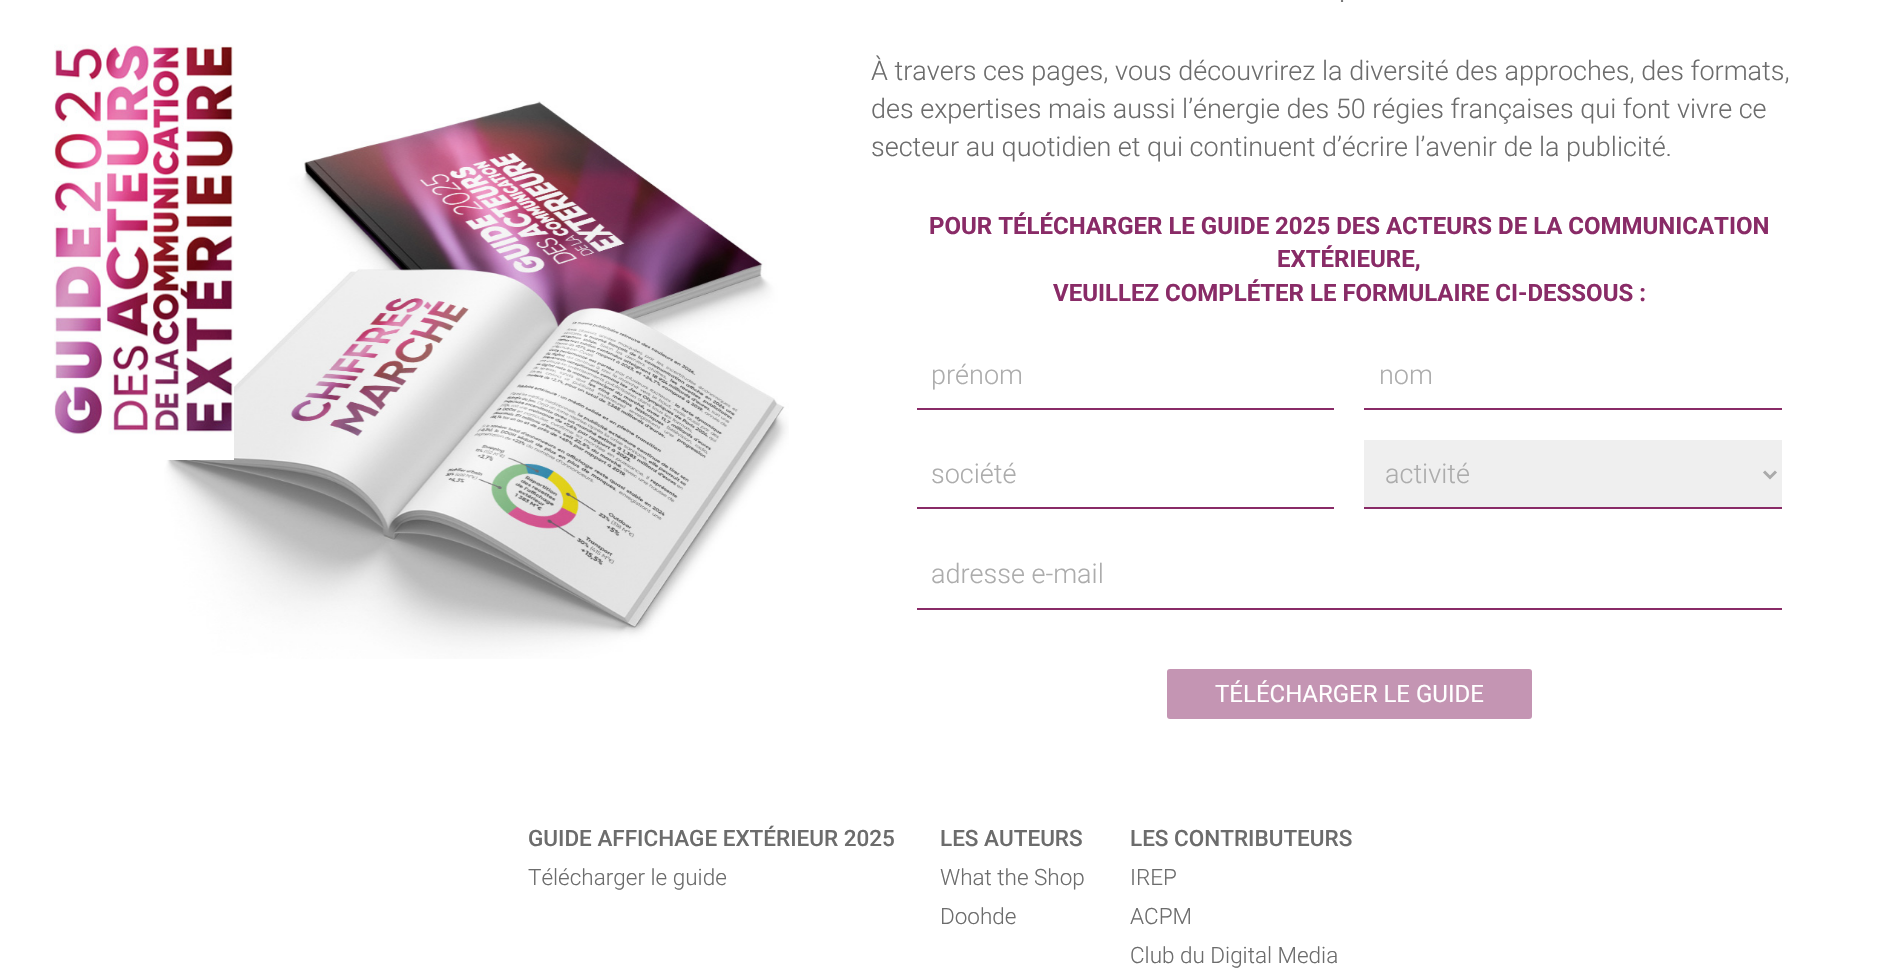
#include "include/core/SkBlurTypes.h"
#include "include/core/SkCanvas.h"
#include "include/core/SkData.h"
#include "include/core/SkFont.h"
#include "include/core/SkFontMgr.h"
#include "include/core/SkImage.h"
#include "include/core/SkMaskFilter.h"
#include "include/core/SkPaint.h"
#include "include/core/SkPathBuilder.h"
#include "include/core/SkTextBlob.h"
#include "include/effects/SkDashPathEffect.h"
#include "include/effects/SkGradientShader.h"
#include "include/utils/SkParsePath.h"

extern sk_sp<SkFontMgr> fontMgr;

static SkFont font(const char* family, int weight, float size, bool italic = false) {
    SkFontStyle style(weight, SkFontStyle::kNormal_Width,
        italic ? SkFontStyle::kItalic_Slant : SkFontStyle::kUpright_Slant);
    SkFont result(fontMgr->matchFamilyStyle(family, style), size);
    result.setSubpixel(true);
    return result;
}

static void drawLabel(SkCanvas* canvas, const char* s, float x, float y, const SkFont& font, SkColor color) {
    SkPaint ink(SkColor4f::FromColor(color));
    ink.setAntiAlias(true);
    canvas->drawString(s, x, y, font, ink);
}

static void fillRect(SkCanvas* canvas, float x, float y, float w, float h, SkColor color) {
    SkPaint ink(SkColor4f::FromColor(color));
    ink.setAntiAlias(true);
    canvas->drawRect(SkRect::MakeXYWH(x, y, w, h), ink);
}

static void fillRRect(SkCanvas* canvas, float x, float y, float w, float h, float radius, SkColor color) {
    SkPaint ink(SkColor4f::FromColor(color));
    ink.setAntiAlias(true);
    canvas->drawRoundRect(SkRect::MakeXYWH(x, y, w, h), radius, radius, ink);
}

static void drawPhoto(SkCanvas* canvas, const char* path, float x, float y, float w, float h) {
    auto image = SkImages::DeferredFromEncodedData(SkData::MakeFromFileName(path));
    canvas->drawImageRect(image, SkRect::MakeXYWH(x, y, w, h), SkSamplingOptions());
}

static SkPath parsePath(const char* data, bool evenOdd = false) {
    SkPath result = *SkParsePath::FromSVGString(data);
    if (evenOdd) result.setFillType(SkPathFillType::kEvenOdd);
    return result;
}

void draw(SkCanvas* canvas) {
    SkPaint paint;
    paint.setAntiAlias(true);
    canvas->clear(0xFFFFFFFF);
    drawPhoto(canvas, "assets/img2.png", 164, 101, 625, 558);
    drawPhoto(canvas, "assets/img1.png", 54, 44, 180, 416);
    SkFont font1 = font("Roboto", 300, 27);
    drawLabel(canvas, ".", 1339, 2, font1, 0xFF6C6C6C);
    drawLabel(canvas, "À travers ces pages, vous découvrirez la diversité des approches, des formats,", 871, 80, font1, 0xFF6C6C6C);
    drawLabel(canvas, "des expertises mais aussi l’énergie des 50 régies françaises qui font vivre ce", 871, 118, font1, 0xFF6C6C6C);
    drawLabel(canvas, "secteur au quotidien et qui continuent d’écrire l’avenir de la publicité.", 871, 156, font1, 0xFF6C6C6C);
    SkFont font2 = font("Roboto", 700, 24);
    drawLabel(canvas, "POUR TÉLÉCHARGER LE GUIDE 2025 DES ACTEURS DE LA COMMUNICATION", 929, 234, font2, 0xFF892B67);
    drawLabel(canvas, "EXTÉRIEURE,", 1277, 267, font2, 0xFF892B67);
    drawLabel(canvas, "VEUILLEZ COMPLÉTER LE FORMULAIRE CI-DESSOUS :", 1053, 301, font2, 0xFF892B67);
    fillRect(canvas, 917, 408, 417, 2, 0xFF892B67);
    drawLabel(canvas, "prénom", 931, 384, font1, 0xFFACACAC);
    fillRect(canvas, 1364, 408, 418, 2, 0xFF892B67);
    drawLabel(canvas, "nom", 1379, 384, font1, 0xFFACACAC);
    fillRect(canvas, 917, 507, 417, 2, 0xFF892B67);
    drawLabel(canvas, "société", 931, 483, font1, 0xFFACACAC);
    fillRect(canvas, 1364, 440, 418, 67, 0xFFEFEFEF);
    fillRect(canvas, 1364, 507, 418, 2, 0xFF892B67);
    paint.setStroke(true);
    paint.setStrokeWidth(3);
    paint.setColor(0xFFAAAAAA);
    canvas->drawPath(parsePath("M1764 471.5L1770 477.5L1776 471.5"), paint);
    drawLabel(canvas, "activité", 1385, 483, font1, 0xFFACACAC);
    fillRect(canvas, 917, 608, 865, 2, 0xFF892B67);
    drawLabel(canvas, "adresse e-mail", 931, 583, font1, 0xFFACACAC);
    fillRRect(canvas, 1167, 669, 365, 50, 3, 0xFFC495B3);
    SkFont font3 = font("Roboto", 400, 24);
    drawLabel(canvas, "TÉLÉCHARGER LE GUIDE", 1215, 702, font3, 0xFFFFFFFF);
    SkFont font4 = font("Roboto", 500, 22.5f);
    drawLabel(canvas, "GUIDE AFFICHAGE EXTÉRIEUR 2025", 528, 846, font4, 0xFF6C6C6C);
    SkFont font5 = font("Roboto", 300, 22.5f);
    drawLabel(canvas, "Télécharger le guide", 528, 885, font5, 0xFF6C6C6C);
    drawLabel(canvas, "LES AUTEURS", 940, 846, font4, 0xFF6C6C6C);
    drawLabel(canvas, "What the Shop", 940, 885, font5, 0xFF6C6C6C);
    drawLabel(canvas, "Doohde", 940, 924, font5, 0xFF6C6C6C);
    drawLabel(canvas, "LES CONTRIBUTEURS", 1130, 846, font4, 0xFF6C6C6C);
    drawLabel(canvas, "IREP", 1130, 885, font5, 0xFF6C6C6C);
    drawLabel(canvas, "ACPM", 1130, 924, font5, 0xFF6C6C6C);
    drawLabel(canvas, "Club du Digital Media", 1130, 963, font5, 0xFF6C6C6C);
}
